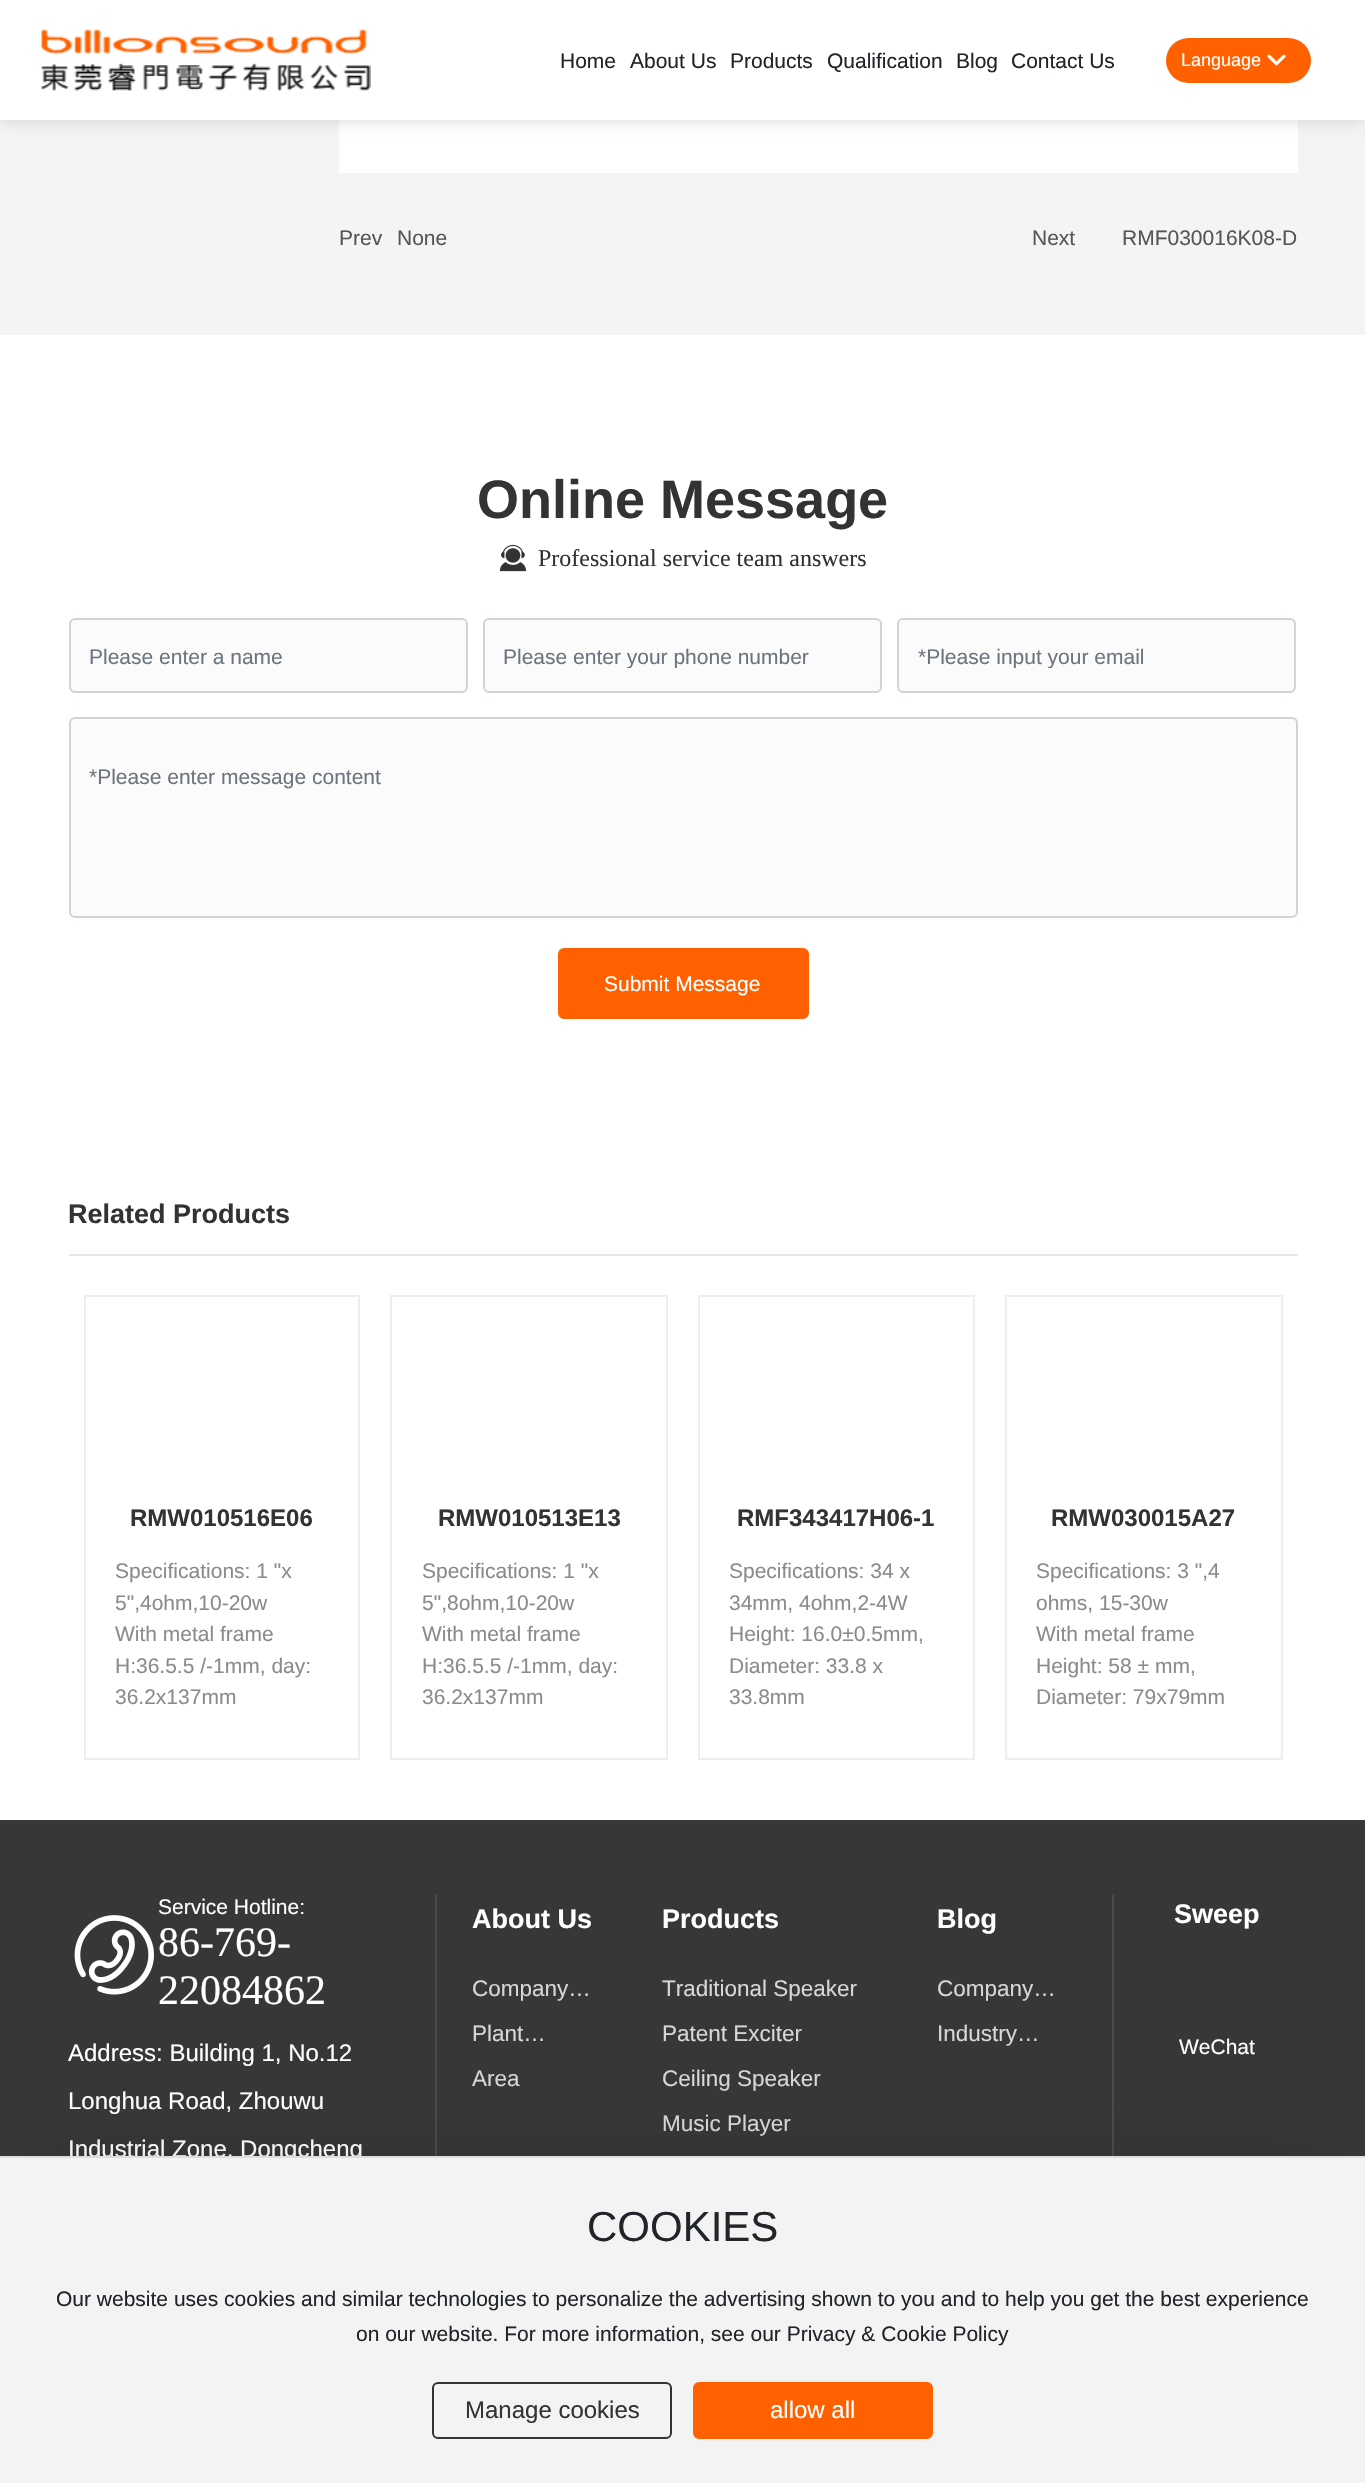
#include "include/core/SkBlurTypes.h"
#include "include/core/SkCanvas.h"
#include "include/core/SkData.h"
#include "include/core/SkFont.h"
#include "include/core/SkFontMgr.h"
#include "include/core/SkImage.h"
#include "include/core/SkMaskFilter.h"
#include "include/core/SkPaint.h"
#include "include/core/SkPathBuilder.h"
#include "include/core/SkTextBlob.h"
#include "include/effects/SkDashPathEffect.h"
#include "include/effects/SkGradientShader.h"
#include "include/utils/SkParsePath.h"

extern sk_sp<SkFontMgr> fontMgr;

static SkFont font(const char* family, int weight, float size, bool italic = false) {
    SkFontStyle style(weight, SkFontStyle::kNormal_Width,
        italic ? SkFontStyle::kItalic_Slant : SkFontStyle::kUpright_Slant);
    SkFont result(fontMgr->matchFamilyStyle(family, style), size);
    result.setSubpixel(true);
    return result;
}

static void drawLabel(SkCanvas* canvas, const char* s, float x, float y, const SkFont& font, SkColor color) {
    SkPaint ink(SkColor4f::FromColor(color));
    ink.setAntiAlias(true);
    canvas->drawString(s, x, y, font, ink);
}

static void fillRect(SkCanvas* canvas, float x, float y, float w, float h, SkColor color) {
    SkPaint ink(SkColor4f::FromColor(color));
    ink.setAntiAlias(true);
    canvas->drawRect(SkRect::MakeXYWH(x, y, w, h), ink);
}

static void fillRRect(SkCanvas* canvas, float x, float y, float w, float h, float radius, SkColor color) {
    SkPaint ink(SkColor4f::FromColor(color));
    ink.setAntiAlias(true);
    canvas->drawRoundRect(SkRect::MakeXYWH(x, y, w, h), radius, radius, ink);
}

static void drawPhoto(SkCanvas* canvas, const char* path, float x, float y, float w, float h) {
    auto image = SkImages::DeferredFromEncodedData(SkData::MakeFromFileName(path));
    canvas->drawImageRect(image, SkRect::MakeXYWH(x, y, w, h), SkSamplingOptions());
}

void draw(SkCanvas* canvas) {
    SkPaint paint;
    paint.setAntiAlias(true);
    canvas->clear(0xFFFFFFFF);
    fillRect(canvas, 0, 120, 1365, 215, 0xFFF4F4F4);
    fillRect(canvas, 339, 120, 959, 53, 0xFFFFFFFF);
    paint.setColor(0x26000000);
    paint.setMaskFilter(SkMaskFilter::MakeBlur(kNormal_SkBlurStyle, 7.5f));
    canvas->drawRect(SkRect::MakeXYWH(0, 0, 1365, 120), paint);
    paint.setMaskFilter(nullptr);
    fillRect(canvas, 0, 0, 1365, 120, 0xFFFFFFFF);
    drawPhoto(canvas, "assets/img1.png", 41, 29, 330, 62);
    SkFont font1 = font("Liberation Sans", 400, 21);
    drawLabel(canvas, "Home", 560, 68, font1, 0xFF212529);
    drawLabel(canvas, "About Us", 630, 68, font1, 0xFF212529);
    drawLabel(canvas, "Products", 730, 68, font1, 0xFF212529);
    drawLabel(canvas, "Qualification", 827, 68, font1, 0xFF212529);
    drawLabel(canvas, "Blog", 956, 68, font1, 0xFF212529);
    drawLabel(canvas, "Contact Us", 1011, 68, font1, 0xFF212529);
    fillRRect(canvas, 1166, 38, 145, 45, 22.5f, 0xFFFF6100);
    SkFont font2 = font("Liberation Sans", 400, 18);
    drawLabel(canvas, "Language", 1181, 66, font2, 0xFFFFFFFF);
    drawPhoto(canvas, "assets/img2.png", 1267, 54, 19, 12);
    drawLabel(canvas, "Prev", 339, 245, font1, 0xFF555555);
    drawLabel(canvas, "None", 397, 245, font1, 0xFF555555);
    drawLabel(canvas, "Next", 1032, 245, font1, 0xFF555555);
    drawLabel(canvas, "RMF030016K08-D", 1122, 245, font1, 0xFF555555);
    SkFont font3 = font("Liberation Sans", 700, 54);
    drawLabel(canvas, "Online Message", 477, 518, font3, 0xFF333333);
    drawPhoto(canvas, "assets/img3.png", 499, 544, 28, 28);
    SkFont font4 = font("Liberation Serif", 400, 24);
    drawLabel(canvas, "Professional service team answers", 538, 566, font4, 0xFF333333);
    paint.setColor(0xFFFBFBFB);
    canvas->drawRoundRect(SkRect::MakeXYWH(70, 619, 397, 73), 5, 5, paint);
    paint.setStroke(true);
    paint.setStrokeWidth(2);
    paint.setColor(0xFFCED4DA);
    canvas->drawRoundRect(SkRect::MakeXYWH(70, 619, 397, 73), 5, 5, paint);
    drawLabel(canvas, "Please enter a name", 89, 664, font1, 0xFF6C757D);
    paint.setStroke(false);
    paint.setColor(0xFFFBFBFB);
    canvas->drawRoundRect(SkRect::MakeXYWH(484, 619, 397, 73), 5, 5, paint);
    paint.setStroke(true);
    paint.setColor(0xFFCED4DA);
    canvas->drawRoundRect(SkRect::MakeXYWH(484, 619, 397, 73), 5, 5, paint);
    canvas->save();
    canvas->clipRect(SkRect::MakeXYWH(504, 644, 357, 24));
    drawLabel(canvas, "Please enter your phone number", 503, 664, font1, 0xFF6C757D);
    canvas->restore();
    paint.setStroke(false);
    paint.setColor(0xFFFBFBFB);
    canvas->drawRoundRect(SkRect::MakeXYWH(898, 619, 397, 73), 5, 5, paint);
    paint.setStroke(true);
    paint.setColor(0xFFCED4DA);
    canvas->drawRoundRect(SkRect::MakeXYWH(898, 619, 397, 73), 5, 5, paint);
    canvas->save();
    canvas->clipRect(SkRect::MakeXYWH(918, 644, 359, 24));
    drawLabel(canvas, "*Please input your email", 918, 664, font1, 0xFF6C757D);
    canvas->restore();
    paint.setStroke(false);
    paint.setColor(0xFFFBFBFB);
    canvas->drawRoundRect(SkRect::MakeXYWH(70, 718, 1227, 199), 5, 5, paint);
    paint.setStroke(true);
    paint.setColor(0xFFCED4DA);
    canvas->drawRoundRect(SkRect::MakeXYWH(70, 718, 1227, 199), 5, 5, paint);
    drawLabel(canvas, "*Please enter message content", 89, 784, font1, 0xFF6C757D);
    paint.setStroke(false);
    paint.setColor(0xFFFF6100);
    canvas->drawRoundRect(SkRect::MakeXYWH(559, 949, 249, 69), 5, 5, paint);
    paint.setStroke(true);
    canvas->drawRoundRect(SkRect::MakeXYWH(559, 949, 249, 69), 5, 5, paint);
    drawLabel(canvas, "Submit Message", 604, 991, font1, 0xFFFFFFFF);
    SkFont font5 = font("Liberation Sans", 700, 27);
    drawLabel(canvas, "Related Products", 68, 1223, font5, 0xFF333333);
    fillRect(canvas, 69, 1254, 1229, 2, 0xFFE6E6E6);
    paint.setColor(0xFFEEEEEE);
    canvas->drawRect(SkRect::MakeXYWH(85, 1296, 274, 463), paint);
    SkFont font6 = font("Liberation Sans", 700, 24);
    drawLabel(canvas, "RMW010516E06", 130, 1526, font6, 0xFF333333);
    drawLabel(canvas, "Specifications: 1 \"x", 115, 1578, font1, 0xFF8B8B8B);
    drawLabel(canvas, "5\",4ohm,10-20w", 115, 1610, font1, 0xFF8B8B8B);
    drawLabel(canvas, "With metal frame", 115, 1641, font1, 0xFF8B8B8B);
    drawLabel(canvas, "H:36.5.5 /-1mm, day:", 115, 1673, font1, 0xFF8B8B8B);
    drawLabel(canvas, "36.2x137mm", 115, 1704, font1, 0xFF8B8B8B);
    canvas->drawRect(SkRect::MakeXYWH(391, 1296, 276, 463), paint);
    drawLabel(canvas, "RMW010513E13", 438, 1526, font6, 0xFF333333);
    drawLabel(canvas, "Specifications: 1 \"x", 422, 1578, font1, 0xFF8B8B8B);
    drawLabel(canvas, "5\",8ohm,10-20w", 422, 1610, font1, 0xFF8B8B8B);
    drawLabel(canvas, "With metal frame", 422, 1641, font1, 0xFF8B8B8B);
    drawLabel(canvas, "H:36.5.5 /-1mm, day:", 422, 1673, font1, 0xFF8B8B8B);
    drawLabel(canvas, "36.2x137mm", 422, 1704, font1, 0xFF8B8B8B);
    canvas->drawRect(SkRect::MakeXYWH(699, 1296, 275, 463), paint);
    drawLabel(canvas, "RMF343417H06-1", 737, 1526, font6, 0xFF333333);
    drawLabel(canvas, "Specifications: 34 x", 729, 1578, font1, 0xFF8B8B8B);
    drawLabel(canvas, "34mm, 4ohm,2-4W", 729, 1610, font1, 0xFF8B8B8B);
    drawLabel(canvas, "Height: 16.0±0.5mm,", 729, 1641, font1, 0xFF8B8B8B);
    drawLabel(canvas, "Diameter: 33.8 x", 729, 1673, font1, 0xFF8B8B8B);
    drawLabel(canvas, "33.8mm", 729, 1704, font1, 0xFF8B8B8B);
    canvas->drawRect(SkRect::MakeXYWH(1006, 1296, 276, 463), paint);
    drawLabel(canvas, "RMW030015A27", 1051, 1526, font6, 0xFF333333);
    drawLabel(canvas, "Specifications: 3 \",4", 1036, 1578, font1, 0xFF8B8B8B);
    drawLabel(canvas, "ohms, 15-30w", 1036, 1610, font1, 0xFF8B8B8B);
    drawLabel(canvas, "With metal frame", 1036, 1641, font1, 0xFF8B8B8B);
    drawLabel(canvas, "Height: 58 ± mm,", 1036, 1673, font1, 0xFF8B8B8B);
    drawLabel(canvas, "Diameter: 79x79mm", 1036, 1704, font1, 0xFF8B8B8B);
    fillRect(canvas, 0, 1820, 1365, 336, 0xFF373737);
    fillRect(canvas, 435, 1895, 2, 261, 0xFF4B4B4B);
    drawPhoto(canvas, "assets/img4.png", 74, 1915, 80, 80);
    drawLabel(canvas, "Service Hotline:", 158, 1914, font1, 0xFFFFFFFF);
    SkFont font7 = font("Liberation Serif", 400, 42);
    drawLabel(canvas, "86-769-", 158, 1956, font7, 0xFFFFFFFF);
    drawLabel(canvas, "22084862", 158, 2004, font7, 0xFFFFFFFF);
    SkFont font8 = font("Liberation Sans", 400, 24);
    drawLabel(canvas, "Address: Building 1, No.12", 68, 2061, font8, 0xFFFFFFFF);
    drawLabel(canvas, "Longhua Road, Zhouwu", 68, 2109, font8, 0xFFFFFFFF);
    drawLabel(canvas, "Industrial Zone, Dongcheng", 68, 2157, font8, 0xFFFFFFFF);
    fillRect(canvas, 1112, 1895, 2, 261, 0xFF4B4B4B);
    drawLabel(canvas, "About Us", 472, 1928, font5, 0xFFFFFFFF);
    SkFont font9 = font("Liberation Sans", 400, 22.5f);
    drawLabel(canvas, "Company…", 472, 1996, font9, 0xFFD7D7D7);
    drawLabel(canvas, "Plant…", 472, 2041, font9, 0xFFD7D7D7);
    drawLabel(canvas, "Area", 472, 2086, font9, 0xFFD7D7D7);
    drawLabel(canvas, "Products", 662, 1928, font5, 0xFFFFFFFF);
    drawLabel(canvas, "Traditional Speaker", 662, 1996, font9, 0xFFD7D7D7);
    drawLabel(canvas, "Patent Exciter", 662, 2041, font9, 0xFFD7D7D7);
    drawLabel(canvas, "Ceiling Speaker", 662, 2086, font9, 0xFFD7D7D7);
    drawLabel(canvas, "Music Player", 662, 2131, font9, 0xFFD7D7D7);
    drawLabel(canvas, "Blog", 937, 1928, font5, 0xFFFFFFFF);
    drawLabel(canvas, "Company…", 937, 1996, font9, 0xFFD7D7D7);
    drawLabel(canvas, "Industry…", 937, 2041, font9, 0xFFD7D7D7);
    drawLabel(canvas, "Sweep", 1174, 1923, font5, 0xFFFFFFFF);
    drawLabel(canvas, "WeChat", 1179, 2054, font1, 0xFFFFFFFF);
    paint.setStroke(false);
    paint.setColor(0x33000000);
    paint.setMaskFilter(SkMaskFilter::MakeBlur(kNormal_SkBlurStyle, 37.5f));
    canvas->drawRect(SkRect::MakeXYWH(32, 2181, 1302, 266), paint);
    paint.setMaskFilter(nullptr);
    fillRect(canvas, 0, 2158, 1365, 325, 0xFFF3F3F3);
    fillRect(canvas, 0, 2156, 1365, 2, 0xFFDDDDDD);
    SkFont font10 = font("Liberation Sans", 400, 42);
    drawLabel(canvas, "COOKIES", 587, 2241, font10, 0xFF212529);
    drawLabel(canvas, "Our website uses cookies and similar technologies to personalize the advertising shown to you and to help you get the best experience", 56, 2306, font1, 0xFF212529);
    drawLabel(canvas, "on our website. For more information, see our Privacy & Cookie Policy", 356, 2341, font1, 0xFF212529);
    paint.setStroke(true);
    paint.setColor(0xFF333333);
    canvas->drawRoundRect(SkRect::MakeXYWH(433, 2383, 238, 55), 5, 5, paint);
    drawLabel(canvas, "Manage cookies", 465, 2418, font8, 0xFF333333);
    paint.setStroke(false);
    paint.setColor(0xFFFF6100);
    canvas->drawRoundRect(SkRect::MakeXYWH(694, 2383, 238, 55), 5, 5, paint);
    paint.setStroke(true);
    canvas->drawRoundRect(SkRect::MakeXYWH(694, 2383, 238, 55), 5, 5, paint);
    drawLabel(canvas, "allow all", 770, 2418, font8, 0xFFFFFFFF);
}
